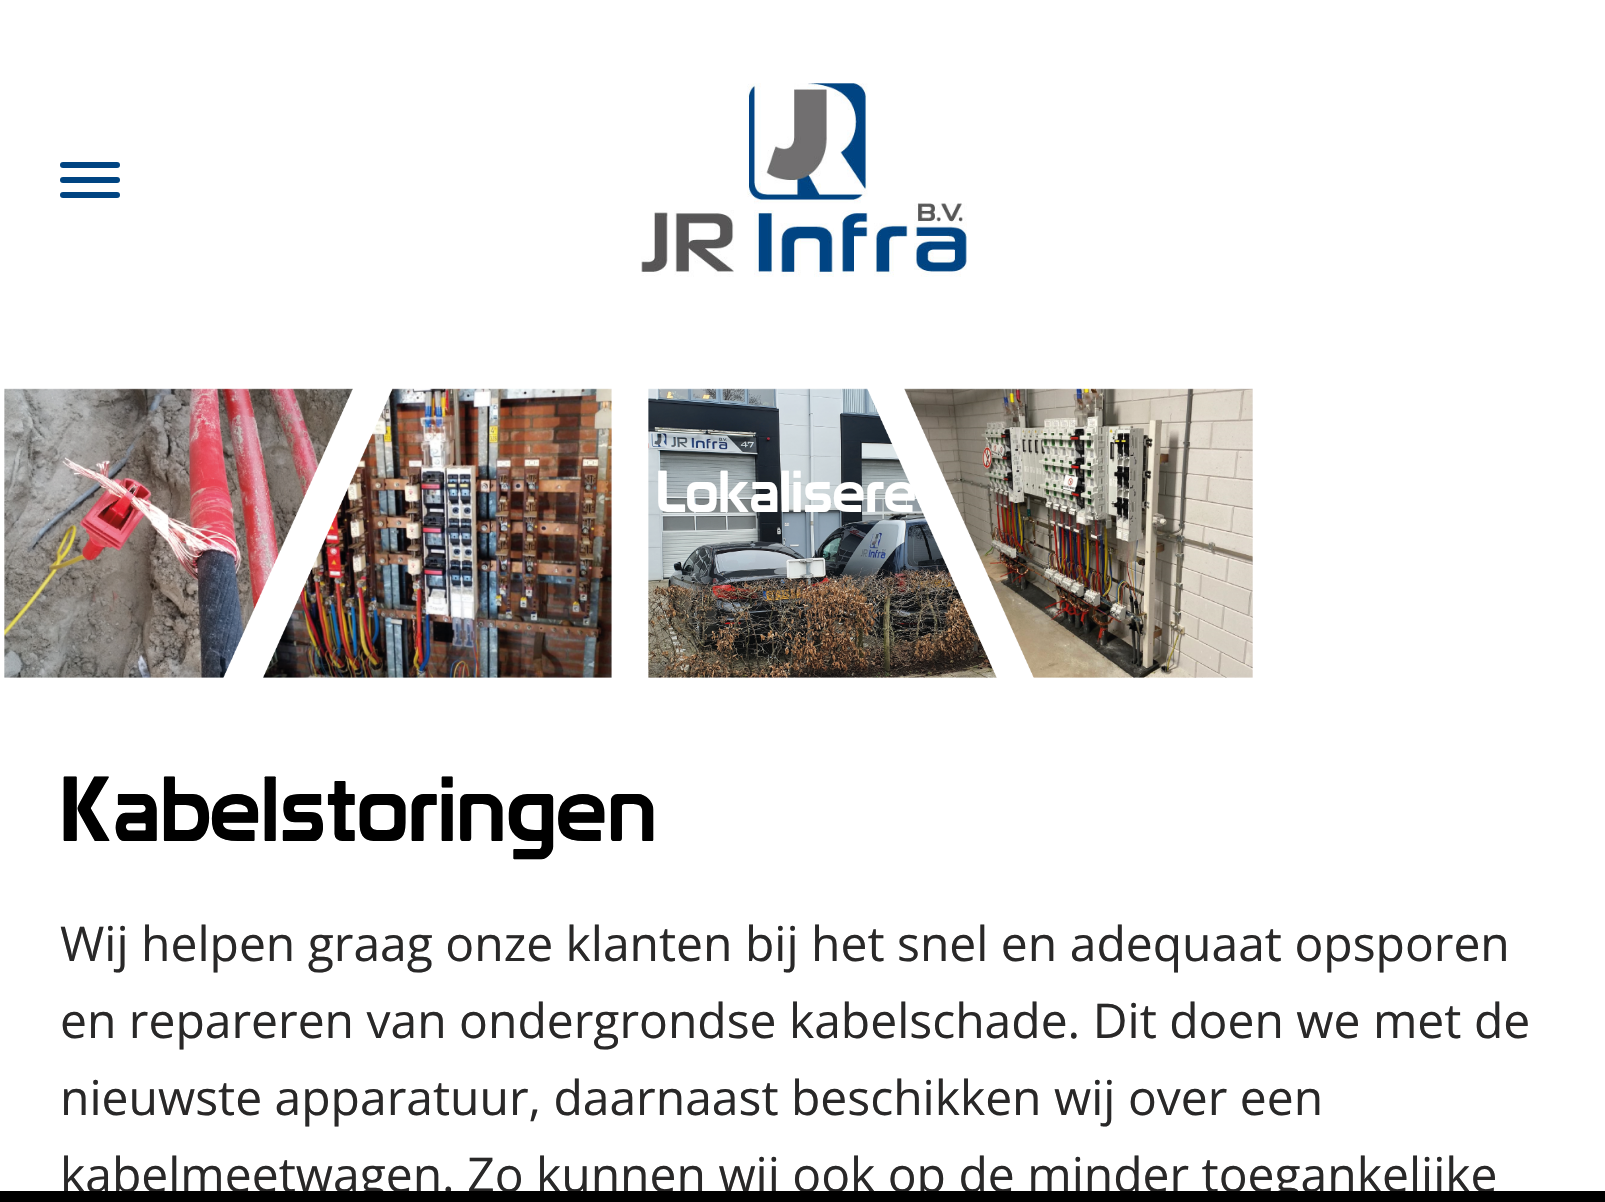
#include "include/core/SkBlurTypes.h"
#include "include/core/SkCanvas.h"
#include "include/core/SkData.h"
#include "include/core/SkFont.h"
#include "include/core/SkFontMgr.h"
#include "include/core/SkImage.h"
#include "include/core/SkMaskFilter.h"
#include "include/core/SkPaint.h"
#include "include/core/SkPathBuilder.h"
#include "include/core/SkTextBlob.h"
#include "include/effects/SkDashPathEffect.h"
#include "include/effects/SkGradientShader.h"
#include "include/utils/SkParsePath.h"

extern sk_sp<SkFontMgr> fontMgr;

static SkFont font(const char* family, int weight, float size, bool italic = false) {
    SkFontStyle style(weight, SkFontStyle::kNormal_Width,
        italic ? SkFontStyle::kItalic_Slant : SkFontStyle::kUpright_Slant);
    SkFont result(fontMgr->matchFamilyStyle(family, style), size);
    result.setSubpixel(true);
    return result;
}

static void drawLabel(SkCanvas* canvas, const char* s, float x, float y, const SkFont& font, SkColor color) {
    SkPaint ink(SkColor4f::FromColor(color));
    ink.setAntiAlias(true);
    canvas->drawString(s, x, y, font, ink);
}

static void fillRect(SkCanvas* canvas, float x, float y, float w, float h, SkColor color) {
    SkPaint ink(SkColor4f::FromColor(color));
    ink.setAntiAlias(true);
    canvas->drawRect(SkRect::MakeXYWH(x, y, w, h), ink);
}

static void fillRRect(SkCanvas* canvas, float x, float y, float w, float h, float radius, SkColor color) {
    SkPaint ink(SkColor4f::FromColor(color));
    ink.setAntiAlias(true);
    canvas->drawRoundRect(SkRect::MakeXYWH(x, y, w, h), radius, radius, ink);
}

static void drawPhoto(SkCanvas* canvas, const char* path, float x, float y, float w, float h) {
    auto image = SkImages::DeferredFromEncodedData(SkData::MakeFromFileName(path));
    canvas->drawImageRect(image, SkRect::MakeXYWH(x, y, w, h), SkSamplingOptions());
}

void draw(SkCanvas* canvas) {
    SkPaint paint;
    paint.setAntiAlias(true);
    canvas->clear(0xFFFFFFFF);
    fillRRect(canvas, 60, 162, 60, 6, 3, 0xFF004482);
    fillRRect(canvas, 60, 177, 60, 6, 3, 0xFF004482);
    fillRRect(canvas, 60, 192, 60, 6, 3, 0xFF004482);
    drawPhoto(canvas, "assets/img1.png", 641, 83, 326, 194);
    drawPhoto(canvas, "assets/img2.png", 4, 388, 1249, 290);
    SkFont font1 = font("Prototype", 400, 57.5f);
    drawLabel(canvas, "Lokalisere", 656, 512, font1, 0xFFFFFFFF);
    SkFont font2 = font("Prototype", 400, 90);
    drawLabel(canvas, "Kabelstoringen", 60, 841, font2, 0xFF000000);
    SkFont font3 = font("Open Sans", 400, 48);
    drawLabel(canvas, "Wij helpen graag onze klanten bij het snel en adequaat opsporen", 60, 961, font3, 0xFF292828);
    drawLabel(canvas, "en repareren van ondergrondse kabelschade. Dit doen we met de", 60, 1038, font3, 0xFF292828);
    drawLabel(canvas, "nieuwste apparatuur, daarnaast beschikken wij over een", 60, 1115, font3, 0xFF292828);
    drawLabel(canvas, "kabelmeetwagen. Zo kunnen wij ook op de minder toegankelijke", 60, 1192, font3, 0xFF292828);
    fillRect(canvas, 0, 1191, 1605, 11, 0xFF000000);
}
